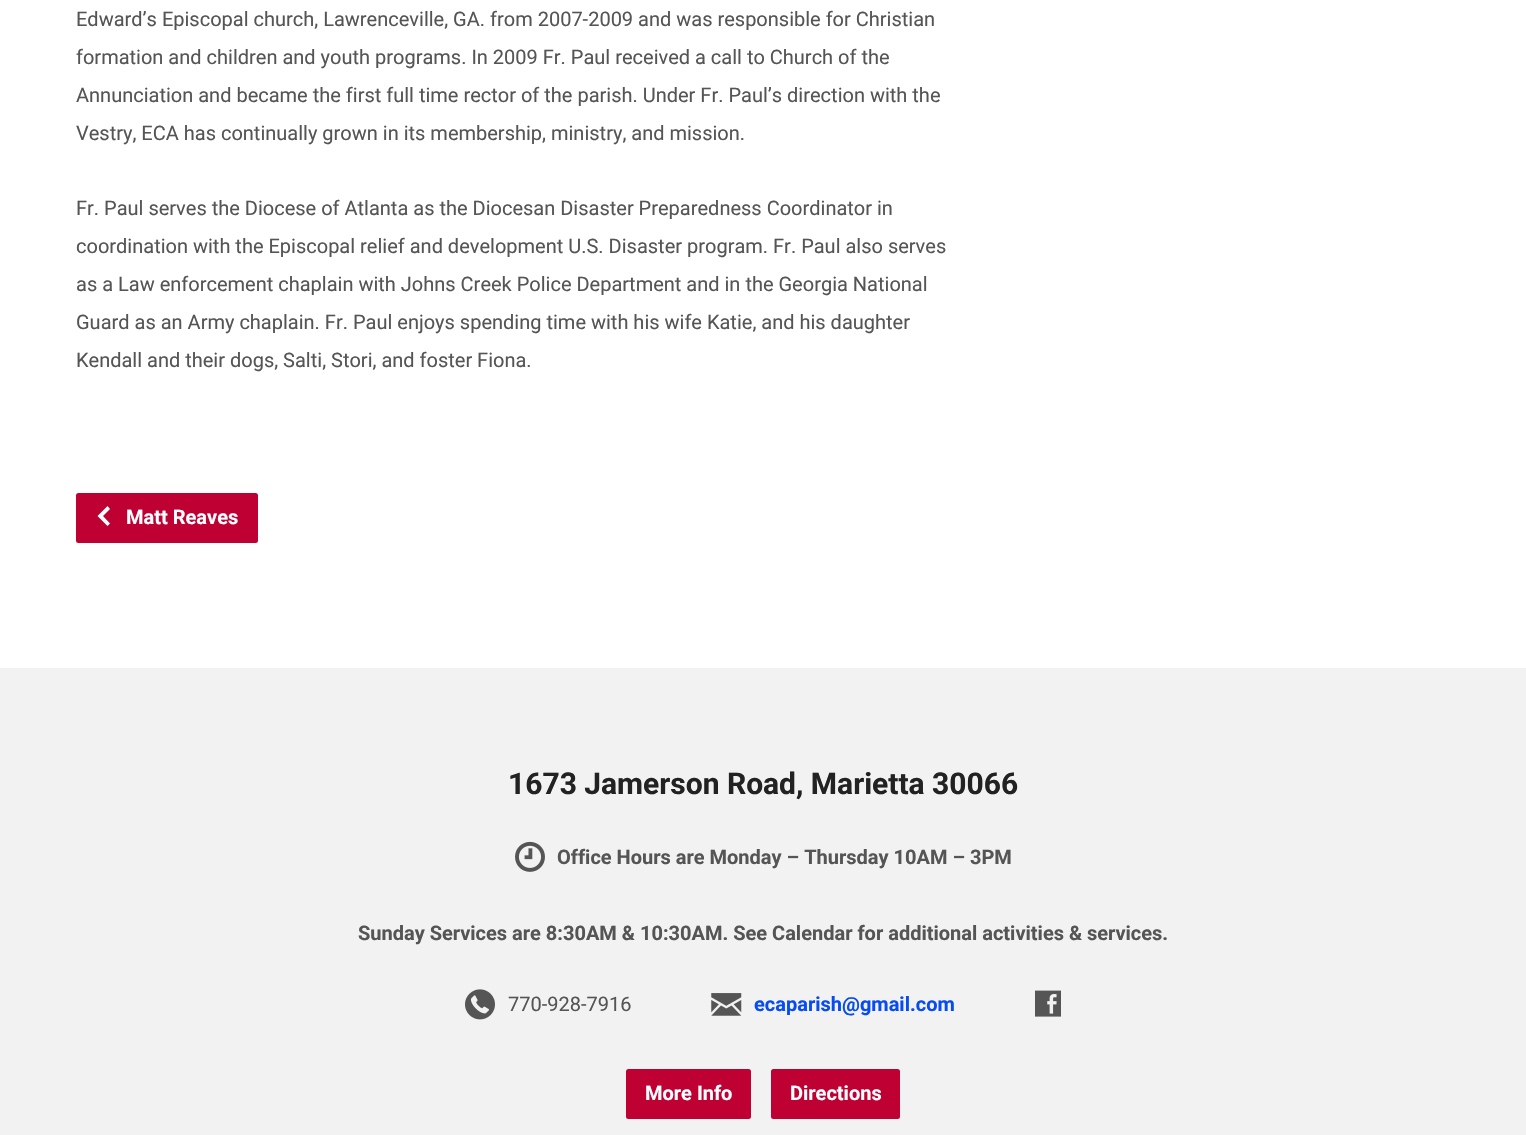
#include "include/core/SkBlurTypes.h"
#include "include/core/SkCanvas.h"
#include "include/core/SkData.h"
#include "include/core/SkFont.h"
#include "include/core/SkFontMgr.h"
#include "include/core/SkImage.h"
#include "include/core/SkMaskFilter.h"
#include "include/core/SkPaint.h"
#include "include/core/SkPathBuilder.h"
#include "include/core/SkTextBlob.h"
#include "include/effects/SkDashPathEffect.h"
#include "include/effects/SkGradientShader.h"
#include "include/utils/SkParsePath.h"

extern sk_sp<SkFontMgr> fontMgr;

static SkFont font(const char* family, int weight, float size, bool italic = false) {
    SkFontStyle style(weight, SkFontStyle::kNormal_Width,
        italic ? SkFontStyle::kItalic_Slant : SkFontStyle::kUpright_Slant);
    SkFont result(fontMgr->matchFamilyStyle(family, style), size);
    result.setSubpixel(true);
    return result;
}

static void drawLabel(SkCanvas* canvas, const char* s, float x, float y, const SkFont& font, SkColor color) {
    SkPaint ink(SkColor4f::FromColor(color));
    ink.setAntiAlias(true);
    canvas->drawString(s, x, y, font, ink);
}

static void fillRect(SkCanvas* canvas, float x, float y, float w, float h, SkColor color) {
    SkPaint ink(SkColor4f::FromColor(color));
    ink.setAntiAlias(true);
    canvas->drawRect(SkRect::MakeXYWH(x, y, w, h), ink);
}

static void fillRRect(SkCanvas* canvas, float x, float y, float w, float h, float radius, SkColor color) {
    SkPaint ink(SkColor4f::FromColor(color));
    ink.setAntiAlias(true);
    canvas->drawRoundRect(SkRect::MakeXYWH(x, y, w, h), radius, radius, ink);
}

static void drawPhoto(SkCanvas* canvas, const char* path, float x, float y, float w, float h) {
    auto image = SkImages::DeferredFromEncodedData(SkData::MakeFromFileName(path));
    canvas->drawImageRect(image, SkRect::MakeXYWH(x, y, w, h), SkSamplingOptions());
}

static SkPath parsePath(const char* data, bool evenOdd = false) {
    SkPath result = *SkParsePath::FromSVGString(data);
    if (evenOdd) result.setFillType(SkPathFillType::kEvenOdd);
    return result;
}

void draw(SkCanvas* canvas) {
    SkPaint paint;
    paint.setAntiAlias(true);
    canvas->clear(0xFFFFFFFF);
    SkFont font1 = font("Roboto", 400, 20);
    drawLabel(canvas, "Edward’s Episcopal church, Lawrenceville, GA. from 2007-2009 and was responsible for Christian", 76, 26, font1, 0xFF555555);
    drawLabel(canvas, "formation and children and youth programs. In 2009 Fr. Paul received a call to Church of the", 76, 64, font1, 0xFF555555);
    drawLabel(canvas, "Annunciation and became the first full time rector of the parish. Under Fr. Paul’s direction with the", 76, 102, font1, 0xFF555555);
    drawLabel(canvas, "Vestry, ECA has continually grown in its membership, ministry, and mission.", 76, 140, font1, 0xFF555555);
    drawLabel(canvas, "Fr. Paul serves the Diocese of Atlanta as the Diocesan Disaster Preparedness Coordinator in", 76, 215, font1, 0xFF555555);
    drawLabel(canvas, "coordination with the Episcopal relief and development U.S. Disaster program. Fr. Paul also serves", 76, 253, font1, 0xFF555555);
    drawLabel(canvas, "as a Law enforcement chaplain with Johns Creek Police Department and in the Georgia National", 76, 291, font1, 0xFF555555);
    drawLabel(canvas, "Guard as an Army chaplain. Fr. Paul enjoys spending time with his wife Katie, and his daughter", 76, 329, font1, 0xFF555555);
    drawLabel(canvas, "Kendall and their dogs, Salti, Stori, and foster Fiona.", 76, 367, font1, 0xFF555555);
    fillRRect(canvas, 76, 493, 182, 50, 2.5f, 0xFFBF0033);
    paint.setColor(0xFFFFFFFF);
    canvas->drawPath(parsePath("M97.5 516L107.5 526L110 523.5L103 516L110 509L107.5 506Z"), paint);
    SkFont font2 = font("Roboto", 700, 20);
    drawLabel(canvas, "Matt Reaves", 126, 524, font2, 0xFFFFFFFF);
    fillRect(canvas, 0, 668, 1526, 467, 0xFFF2F2F2);
    SkFont font3 = font("Roboto", 700, 30);
    drawLabel(canvas, "1673 Jamerson Road, Marietta 30066", 508, 794, font3, 0xFF222222);
    drawPhoto(canvas, "assets/img1.png", 515, 841, 30, 31);
    drawLabel(canvas, "Office Hours are Monday – Thursday 10AM – 3PM", 557, 864, font2, 0xFF555555);
    drawLabel(canvas, "Sunday Services are 8:30AM & 10:30AM. See Calendar for additional activities & services.", 358, 940, font2, 0xFF555555);
    drawPhoto(canvas, "assets/img2.png", 465, 989, 30, 31);
    drawLabel(canvas, "770-928-7916", 508, 1011, font1, 0xFF555555);
    drawPhoto(canvas, "assets/img3.png", 711, 993, 31, 23);
    drawLabel(canvas, "ecaparish@gmail.com", 754, 1011, font2, 0xFF074CEF);
    drawPhoto(canvas, "assets/img4.png", 1035, 990, 26, 27);
    fillRRect(canvas, 626, 1069, 125, 50, 2.5f, 0xFFBF0033);
    drawLabel(canvas, "More Info", 645, 1100, font2, 0xFFFFFFFF);
    fillRRect(canvas, 771, 1069, 129, 50, 2.5f, 0xFFBF0033);
    drawLabel(canvas, "Directions", 790, 1100, font2, 0xFFFFFFFF);
}
